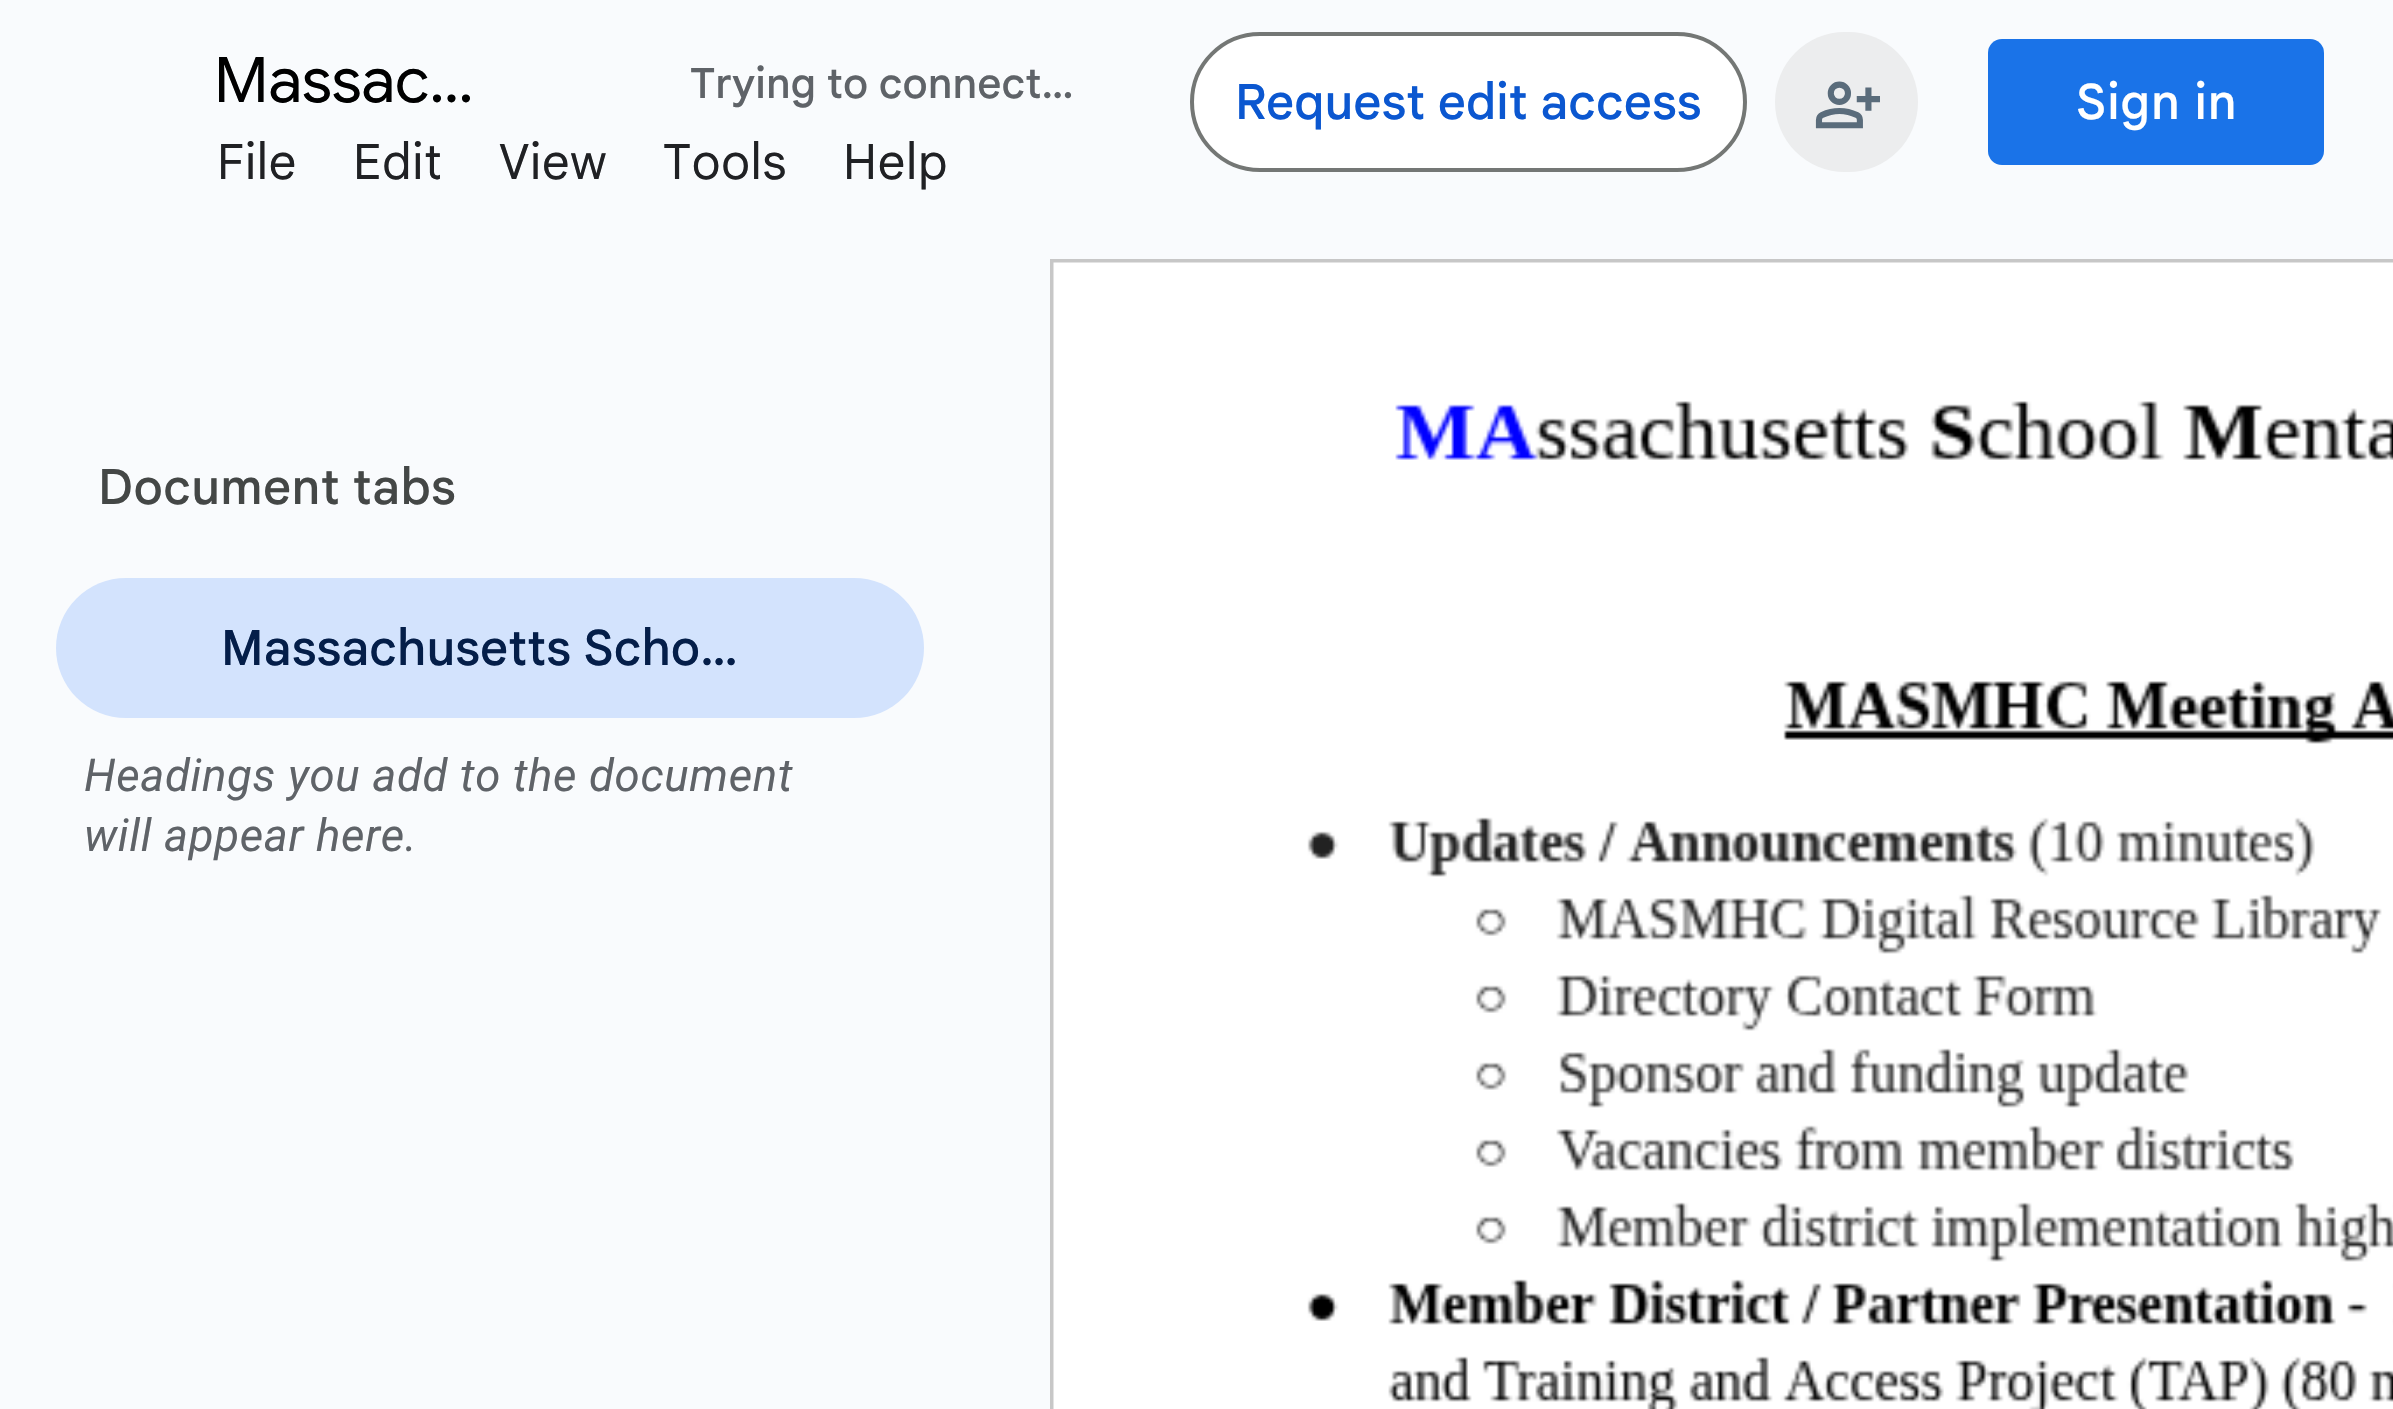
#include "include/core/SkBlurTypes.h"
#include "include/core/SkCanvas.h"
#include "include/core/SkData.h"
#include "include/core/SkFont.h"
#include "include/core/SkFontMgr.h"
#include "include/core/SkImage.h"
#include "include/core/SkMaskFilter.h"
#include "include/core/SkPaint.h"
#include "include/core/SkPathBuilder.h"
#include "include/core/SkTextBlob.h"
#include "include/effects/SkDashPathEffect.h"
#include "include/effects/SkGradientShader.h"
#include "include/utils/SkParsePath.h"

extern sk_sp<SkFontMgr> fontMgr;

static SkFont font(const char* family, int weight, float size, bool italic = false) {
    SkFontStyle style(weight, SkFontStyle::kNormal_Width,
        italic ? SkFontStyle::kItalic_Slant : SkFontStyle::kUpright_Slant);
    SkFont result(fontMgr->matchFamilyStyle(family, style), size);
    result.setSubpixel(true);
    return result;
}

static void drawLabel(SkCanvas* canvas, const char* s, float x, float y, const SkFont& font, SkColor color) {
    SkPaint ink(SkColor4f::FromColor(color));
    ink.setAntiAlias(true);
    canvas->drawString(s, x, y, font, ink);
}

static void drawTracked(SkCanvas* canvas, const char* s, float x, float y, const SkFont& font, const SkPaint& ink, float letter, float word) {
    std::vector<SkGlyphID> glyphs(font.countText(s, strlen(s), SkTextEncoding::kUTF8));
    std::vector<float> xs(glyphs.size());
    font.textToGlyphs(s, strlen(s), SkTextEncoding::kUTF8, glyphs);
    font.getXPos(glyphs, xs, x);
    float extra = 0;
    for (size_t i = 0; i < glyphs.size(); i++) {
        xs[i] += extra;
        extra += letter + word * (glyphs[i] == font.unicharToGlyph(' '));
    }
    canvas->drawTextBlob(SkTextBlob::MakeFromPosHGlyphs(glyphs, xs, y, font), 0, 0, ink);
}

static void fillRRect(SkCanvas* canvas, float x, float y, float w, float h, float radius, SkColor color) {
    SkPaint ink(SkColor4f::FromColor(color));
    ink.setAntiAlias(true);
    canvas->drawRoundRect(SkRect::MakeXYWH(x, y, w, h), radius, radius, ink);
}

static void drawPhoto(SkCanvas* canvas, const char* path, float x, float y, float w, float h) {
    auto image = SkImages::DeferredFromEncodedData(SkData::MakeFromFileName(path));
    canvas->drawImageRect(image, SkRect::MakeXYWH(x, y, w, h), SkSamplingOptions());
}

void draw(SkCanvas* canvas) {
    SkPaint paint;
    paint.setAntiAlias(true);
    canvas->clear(0xFFF9FBFD);
    SkFont font1 = font("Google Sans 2", 400, 63);
    drawLabel(canvas, "Massac…", 214, 102, font1, 0xFF000000);
    SkFont font2 = font("Google Sans", 500, 42);
    drawLabel(canvas, "Trying to connect…", 690, 98, font2, 0xFF5F6368);
    paint.setColor(0xFFFFFFFF);
    canvas->drawRoundRect(SkRect::MakeXYWH(1192, 34, 553, 136), 68, 68, paint);
    paint.setStroke(true);
    paint.setStrokeWidth(4);
    paint.setColor(0xFF747775);
    canvas->drawRoundRect(SkRect::MakeXYWH(1192, 34, 553, 136), 68, 68, paint);
    SkFont font3 = font("Google Sans", 500, 49);
    drawLabel(canvas, "Request edit access", 1235, 119, font3, 0xFF0B57D0);
    fillRRect(canvas, 1775, 32, 143, 140, 70, 0xFFECEDEE);
    drawPhoto(canvas, "assets/img1.png", 1815, 81, 65, 48);
    fillRRect(canvas, 1988, 39, 336, 126, 14, 0xFF1A73E8);
    paint.setStroke(false);
    paint.setColor(0xFFFFFFFF);
    drawTracked(canvas, "Sign in", 2076, 119, font3, paint, 1, 0);
    SkFont font4 = font("Google Sans", 400, 49);
    paint.setColor(0xFF202124);
    drawTracked(canvas, "File", 217, 179, font4, paint, 0.7f, 0);
    drawTracked(canvas, "Edit", 353, 179, font4, paint, 0.7f, 0);
    drawTracked(canvas, "View", 499, 179, font4, paint, 0.7f, 0);
    drawTracked(canvas, "Tools", 663, 179, font4, paint, 0.7f, 0);
    drawTracked(canvas, "Help", 843, 179, font4, paint, 0.7f, 0);
    paint.setColor(0xFF444746);
    drawTracked(canvas, "Document tabs", 98, 504, font3, paint, 0.3f, 0);
    fillRRect(canvas, 56, 578, 868, 140, 70, 0xFFD3E3FD);
    drawLabel(canvas, "Massachusetts Scho…", 221, 665, font3, 0xFF041E49);
    SkFont font5 = font("Roboto", 400, 45.5f, true);
    paint.setColor(0xFF5F6368);
    drawTracked(canvas, "Headings you add to the document", 84, 791, font5, paint, 0.7f, 0);
    drawTracked(canvas, "will appear here.", 84, 851, font5, paint, 0.7f, 0);
    paint.setStroke(true);
    paint.setColor(0xFFC7C7C7);
    canvas->drawRect(SkRect::MakeXYWH(1052, 261, 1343, 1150), paint);
    drawPhoto(canvas, "assets/img2.png", 1053, 262, 1340, 1147);
}
